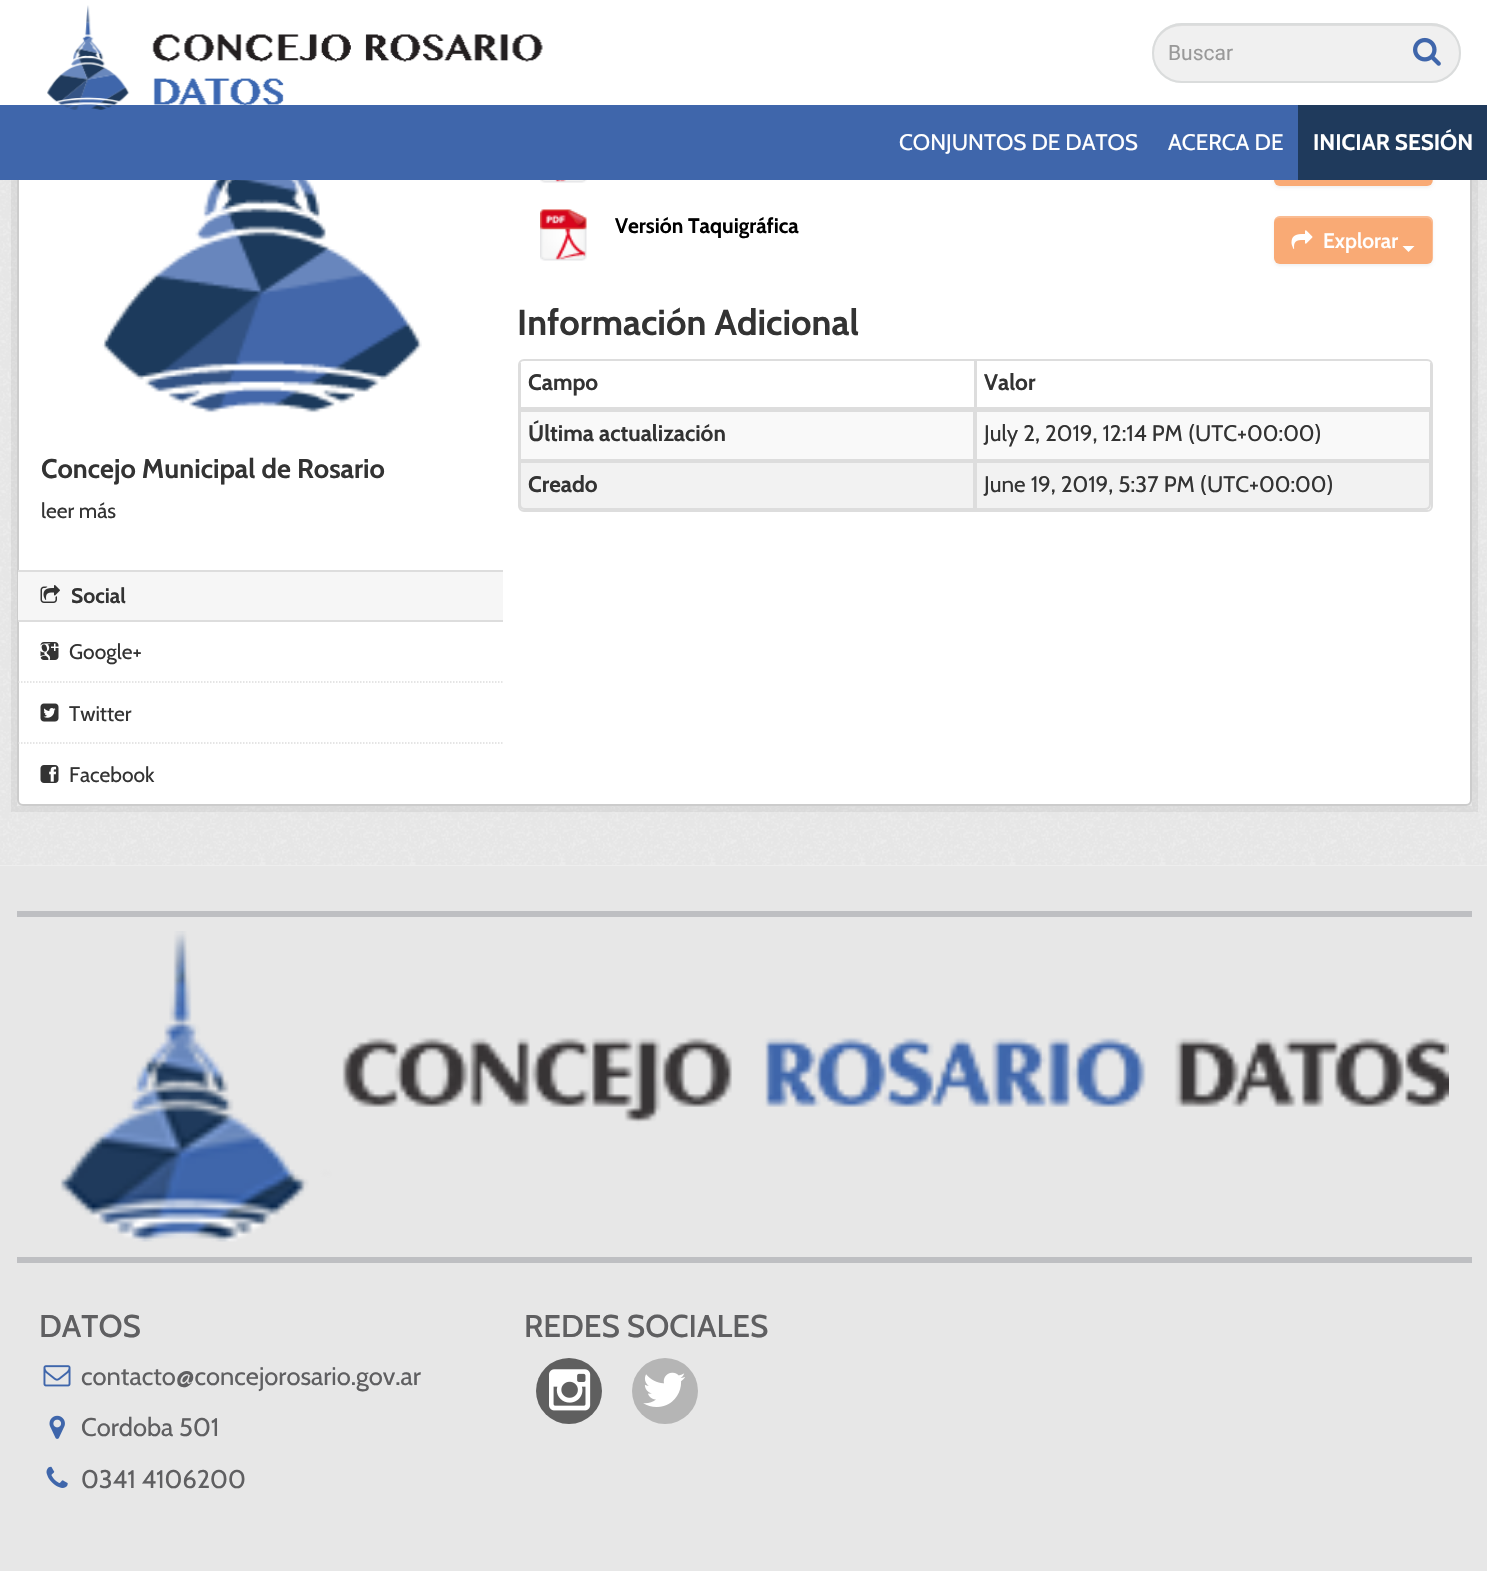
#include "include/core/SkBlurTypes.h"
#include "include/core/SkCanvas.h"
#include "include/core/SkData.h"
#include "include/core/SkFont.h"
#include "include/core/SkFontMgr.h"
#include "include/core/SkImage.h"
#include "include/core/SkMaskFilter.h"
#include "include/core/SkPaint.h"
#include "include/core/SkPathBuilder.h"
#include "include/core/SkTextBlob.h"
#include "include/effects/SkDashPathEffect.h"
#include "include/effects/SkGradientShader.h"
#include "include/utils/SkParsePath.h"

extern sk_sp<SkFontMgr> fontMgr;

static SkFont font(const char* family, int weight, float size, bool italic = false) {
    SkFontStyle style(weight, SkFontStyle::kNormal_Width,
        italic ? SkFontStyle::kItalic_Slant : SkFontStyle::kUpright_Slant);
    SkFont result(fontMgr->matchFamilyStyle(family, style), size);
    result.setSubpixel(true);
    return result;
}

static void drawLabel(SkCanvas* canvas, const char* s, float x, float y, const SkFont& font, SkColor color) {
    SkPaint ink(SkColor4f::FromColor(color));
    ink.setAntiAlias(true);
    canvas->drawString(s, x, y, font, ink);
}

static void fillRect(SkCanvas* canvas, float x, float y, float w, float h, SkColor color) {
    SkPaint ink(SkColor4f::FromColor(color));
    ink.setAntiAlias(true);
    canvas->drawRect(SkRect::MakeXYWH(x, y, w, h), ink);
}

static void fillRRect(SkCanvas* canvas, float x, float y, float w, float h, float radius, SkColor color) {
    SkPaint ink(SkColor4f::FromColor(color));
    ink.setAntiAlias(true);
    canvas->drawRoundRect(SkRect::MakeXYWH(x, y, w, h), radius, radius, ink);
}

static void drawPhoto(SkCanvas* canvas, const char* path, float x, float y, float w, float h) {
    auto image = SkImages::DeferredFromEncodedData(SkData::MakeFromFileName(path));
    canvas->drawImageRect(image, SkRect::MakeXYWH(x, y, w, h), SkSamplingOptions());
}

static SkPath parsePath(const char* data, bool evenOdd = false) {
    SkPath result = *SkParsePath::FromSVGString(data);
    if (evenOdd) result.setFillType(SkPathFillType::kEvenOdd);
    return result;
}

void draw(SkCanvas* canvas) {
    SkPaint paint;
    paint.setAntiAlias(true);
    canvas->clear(0xFFE7E7E7);
    fillRect(canvas, 0, 180, 1487, 686, 0xFFEEEEEE);
    drawPhoto(canvas, "assets/img3.png", 0, 180, 1487, 685);
    paint.setStroke(true);
    paint.setStrokeWidth(6);
    paint.setColor(0x0D000000);
    canvas->drawRect(SkRect::MakeXYWH(14, -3, 1461, 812), paint);
    paint.setStroke(false);
    paint.setColor(0xFFFFFFFF);
    canvas->drawRoundRect(SkRect::MakeXYWH(18, -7, 1453, 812), 5, 5, paint);
    paint.setStroke(true);
    paint.setStrokeWidth(2);
    paint.setColor(0xFFCCCCCC);
    canvas->drawRoundRect(SkRect::MakeXYWH(18, -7, 1453, 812), 5, 5, paint);
    paint.setStroke(false);
    paint.setColor(0x0D000000);
    paint.setMaskFilter(SkMaskFilter::MakeBlur(kNormal_SkBlurStyle, 1.5f));
    canvas->drawRoundRect(SkRect::MakeXYWH(1274, 140, 159, 48), 6, 6, paint);
    paint.setMaskFilter(nullptr);
    fillRRect(canvas, 1274, 138, 159, 48, 6, 0xFFF9AA75);
    paint.setColor(0x33FFFFFF);
    canvas->drawPath(parsePath("M1280 140H1426C1433 140 1432 147 1432 152V184C1433 183 1433 181 1433 180V144C1433 141 1430 138 1427 138H1280C1277 138 1274 141 1274 144V146C1274 142 1276 140 1280 140Z"), paint);
    fillRect(canvas, 0, 105, 1298, 75, 0xFF3F66AB);
    fillRect(canvas, 0, 0, 1487, 105, 0xFFFFFFFF);
    drawPhoto(canvas, "assets/img1.png", 47, 5, 496, 105);
    fillRRect(canvas, 1152, 23, 309, 60, 30, 0xFFF0F0F0);
    paint.setColor(0xFFDEDEDE);
    canvas->drawPath(parsePath("M1182 26H1431C1447 26 1460 38 1460 53V52C1460 37 1447 24 1432 24H1182C1167 24 1154 37 1154 52V53C1154 38 1166 26 1182 26Z"), paint);
    paint.setStroke(true);
    paint.setColor(0xFFDADCDC);
    canvas->drawRoundRect(SkRect::MakeXYWH(1153, 24, 307, 58), 29, 29, paint);
    SkFont font1 = font("Roboto", 400, 21);
    drawLabel(canvas, "Buscar", 1168, 60, font1, 0xFF999999);
    drawPhoto(canvas, "assets/img2.png", 1413, 37, 28, 29);
    SkFont font2 = font("Cabin", 400, 22.5f);
    drawLabel(canvas, "CONJUNTOS DE DATOS", 899, 150, font2, 0xFFFFFFFF);
    drawLabel(canvas, "ACERCA DE", 1168, 150, font2, 0xFFFFFFFF);
    fillRect(canvas, 1298, 105, 189, 75, 0xFF1F3A5C);
    SkFont font3 = font("Cabin", 700, 22.5f);
    drawLabel(canvas, "INICIAR SESIÓN", 1313, 150, font3, 0xFFFFFFFF);
    drawPhoto(canvas, "assets/img4.png", 540, 180, 47, 3);
    drawPhoto(canvas, "assets/img5.png", 540, 209, 47, 52);
    SkFont font4 = font("Cabin", 700, 21);
    drawLabel(canvas, "Versión Taquigráfica", 615, 233, font4, 0xFF000000);
    paint.setStroke(false);
    paint.setColor(0x0D000000);
    paint.setMaskFilter(SkMaskFilter::MakeBlur(kNormal_SkBlurStyle, 1.5f));
    canvas->drawRoundRect(SkRect::MakeXYWH(1274, 218, 159, 48), 6, 6, paint);
    paint.setMaskFilter(nullptr);
    fillRRect(canvas, 1274, 216, 159, 48, 6, 0xFFF9AA75);
    paint.setColor(0x33FFFFFF);
    canvas->drawPath(parsePath("M1280 218H1426C1433 218 1432 225 1432 230V262C1433 261 1433 259 1433 258V222C1433 219 1430 216 1427 216H1280C1277 216 1274 219 1274 222V224C1274 220 1276 218 1280 218Z"), paint);
    drawPhoto(canvas, "assets/img6.png", 1291, 230, 22, 19);
    SkFont font5 = font("Cabin", 600, 21);
    drawLabel(canvas, "Explorar", 1323, 248, font5, 0xFFFFFFFF);
    paint.setColor(0xFFFFFFFF);
    canvas->drawPath(parsePath("M1402.5 246H1414.5L1408.5 252Z"), paint);
    SkFont font6 = font("Cabin", 700, 36);
    drawLabel(canvas, "Información Adicional", 517, 335, font6, 0xFF333333);
    paint.setStroke(true);
    paint.setColor(0xFFDDDDDD);
    canvas->drawRoundRect(SkRect::MakeXYWH(519, 360, 913, 151), 5, 5, paint);
    fillRect(canvas, 974, 360, 1, 50, 0xFFDDDDDD);
    fillRect(canvas, 519, 407, 456, 3, 0xFFDDDDDD);
    fillRect(canvas, 520, 363, 1, 47, 0xFFDDDDDD);
    drawLabel(canvas, "Campo", 528, 390, font3, 0xFF333333);
    fillRect(canvas, 1430, 363, 1, 47, 0xFFDDDDDD);
    fillRect(canvas, 975, 407, 456, 3, 0xFFDDDDDD);
    fillRect(canvas, 975, 360, 2, 50, 0xFFDDDDDD);
    drawLabel(canvas, "Valor", 984, 390, font3, 0xFF333333);
    paint.setStroke(false);
    paint.setColor(0xFFF9F9F9);
    canvas->drawRect(SkRect::MakeXYWH(520, 411, 454, 49), paint);
    paint.setStroke(true);
    paint.setColor(0xFFDDDDDD);
    canvas->drawRect(SkRect::MakeXYWH(520, 411, 454, 49), paint);
    drawLabel(canvas, "Última actualización", 528, 441, font3, 0xFF333333);
    paint.setStroke(false);
    paint.setColor(0xFFF9F9F9);
    canvas->drawRect(SkRect::MakeXYWH(976, 411, 454, 49), paint);
    paint.setStroke(true);
    paint.setColor(0xFFDDDDDD);
    canvas->drawRect(SkRect::MakeXYWH(976, 411, 454, 49), paint);
    drawLabel(canvas, "July 2, 2019, 12:14 PM (UTC+00:00)", 984, 441, font2, 0xFF333333);
    paint.setStroke(false);
    paint.setColor(0xFFF2F2F2);
    canvas->drawPath(parsePath("M520 462H974V509H525C522 509 520 507 520 504Z"), paint);
    paint.setStroke(true);
    paint.setColor(0xFFDDDDDD);
    canvas->drawPath(parsePath("M520 462H974V509H525C522 509 520 507 520 504Z"), paint);
    drawLabel(canvas, "Creado", 528, 492, font3, 0xFF333333);
    paint.setStroke(false);
    paint.setColor(0xFFF2F2F2);
    canvas->drawPath(parsePath("M976 462H1430V504C1430 507 1428 509 1425 509H976Z"), paint);
    paint.setStroke(true);
    paint.setColor(0xFFDDDDDD);
    canvas->drawPath(parsePath("M976 462H1430V504C1430 507 1428 509 1425 509H976Z"), paint);
    drawLabel(canvas, "June 19, 2019, 5:37 PM (UTC+00:00)", 984, 492, font2, 0xFF333333);
    drawPhoto(canvas, "assets/img7.png", 102, 180, 320, 233);
    SkFont font7 = font("Cabin", 700, 27);
    drawLabel(canvas, "Concejo Municipal de Rosario", 41, 478, font7, 0xFF333333);
    SkFont font8 = font("Cabin", 400, 21);
    drawLabel(canvas, "leer más", 41, 518, font8, 0xFF333333);
    fillRect(canvas, 18, 572, 485, 48, 0xFFF6F6F6);
    fillRect(canvas, 18, 570, 485, 2, 0xFFDDDDDD);
    fillRect(canvas, 18, 620, 485, 2, 0xFFDDDDDD);
    drawPhoto(canvas, "assets/img8.png", 40, 585, 20, 18);
    drawLabel(canvas, "Social", 71, 603, font4, 0xFF333333);
    paint.setStrokeWidth(1.5f);
    paint.setPathEffect(SkDashPathEffect::Make({{1.5f, 1.5f}}, 0));
    canvas->drawPath(parsePath("M18 682H502.5"), paint);
    paint.setPathEffect(nullptr);
    drawPhoto(canvas, "assets/img9.png", 40, 642, 19, 18);
    drawLabel(canvas, "Google+", 69, 659, font8, 0xFF333333);
    paint.setPathEffect(SkDashPathEffect::Make({{1.5f, 1.5f}}, 0));
    canvas->drawPath(parsePath("M18 743H502.5"), paint);
    paint.setPathEffect(nullptr);
    drawPhoto(canvas, "assets/img10.png", 40, 703, 19, 19);
    drawLabel(canvas, "Twitter", 69, 721, font8, 0xFF333333);
    drawPhoto(canvas, "assets/img11.png", 40, 765, 19, 18);
    drawLabel(canvas, "Facebook", 69, 782, font8, 0xFF333333);
    fillRect(canvas, 17, 911, 1455, 6, 0xFFBEBFC2);
    fillRect(canvas, 17, 1257, 1455, 6, 0xFFBEBFC2);
    drawPhoto(canvas, "assets/img12.png", 60, 931, 1389, 311);
    SkFont font9 = font("Cabin", 500, 31.5f);
    drawLabel(canvas, "DATOS", 39, 1337, font9, 0xFF5F5F61);
    drawPhoto(canvas, "assets/img13.png", 43, 1365, 28, 22);
    SkFont font10 = font("Cabin", 400, 25.5f);
    drawLabel(canvas, "contacto@concejorosario.gov.ar", 81, 1385, font10, 0xFF5F5F61);
    drawPhoto(canvas, "assets/img14.png", 49, 1415, 16, 24);
    drawLabel(canvas, "Cordoba 501", 81, 1436, font10, 0xFF5F5F61);
    drawPhoto(canvas, "assets/img15.png", 46, 1466, 22, 22);
    drawLabel(canvas, "0341 4106200", 81, 1488, font10, 0xFF5F5F61);
    drawLabel(canvas, "REDES SOCIALES", 524, 1337, font9, 0xFF5F5F61);
    paint.setStroke(false);
    paint.setColor(0xFF5F5F5F);
    canvas->drawCircle(569, 1391, 33, paint);
    drawPhoto(canvas, "assets/img16.png", 549, 1369, 42, 42);
    paint.setColor(0xFFB5B5B5);
    canvas->drawCircle(665, 1391, 33, paint);
    drawPhoto(canvas, "assets/img17.png", 643, 1372, 42, 35);
}
